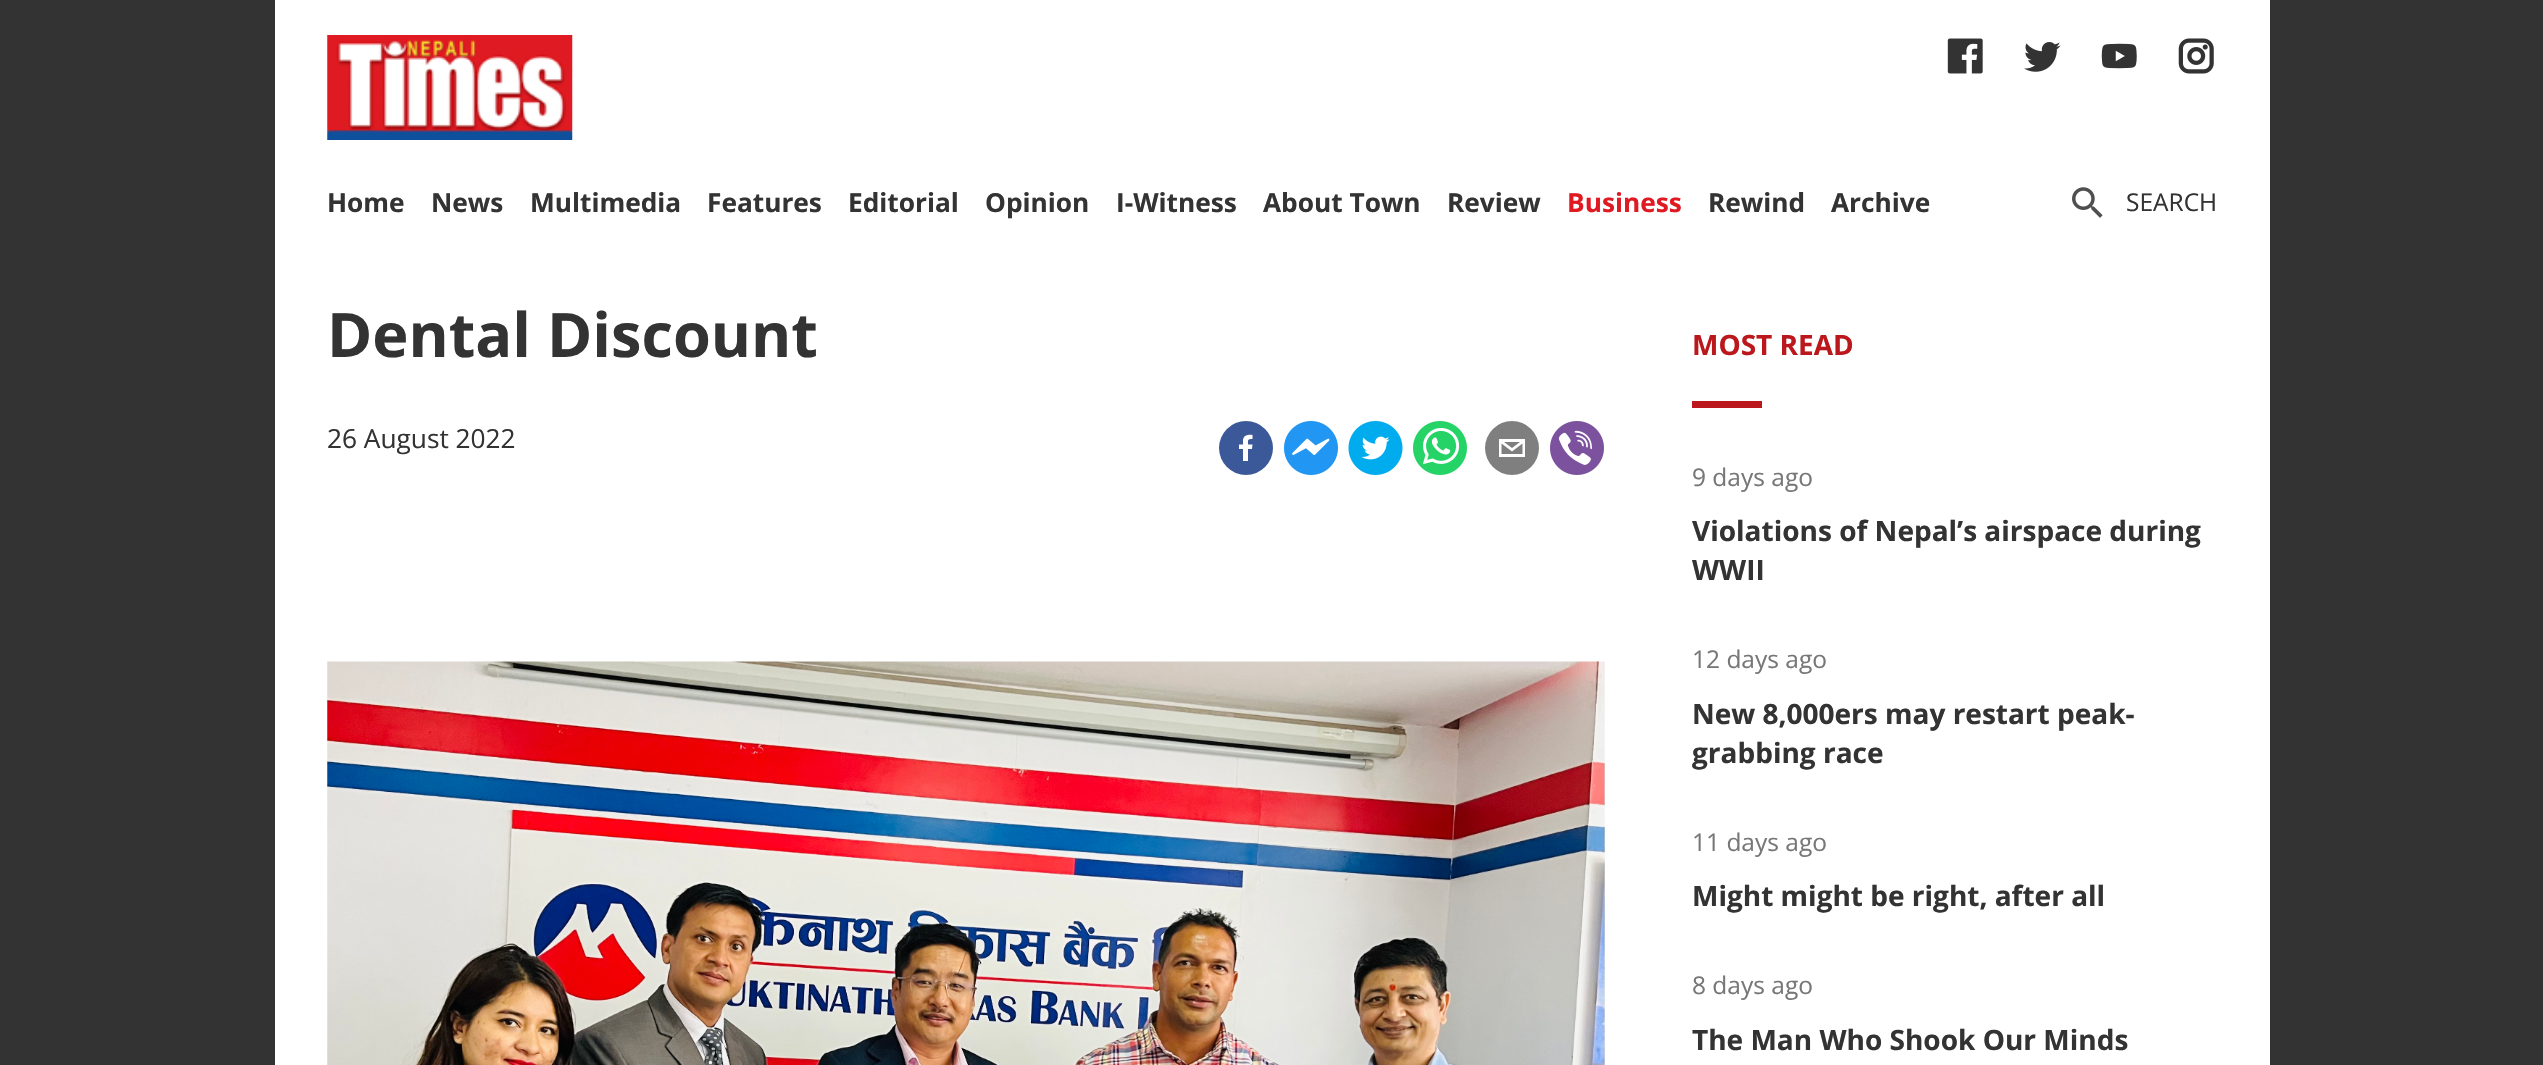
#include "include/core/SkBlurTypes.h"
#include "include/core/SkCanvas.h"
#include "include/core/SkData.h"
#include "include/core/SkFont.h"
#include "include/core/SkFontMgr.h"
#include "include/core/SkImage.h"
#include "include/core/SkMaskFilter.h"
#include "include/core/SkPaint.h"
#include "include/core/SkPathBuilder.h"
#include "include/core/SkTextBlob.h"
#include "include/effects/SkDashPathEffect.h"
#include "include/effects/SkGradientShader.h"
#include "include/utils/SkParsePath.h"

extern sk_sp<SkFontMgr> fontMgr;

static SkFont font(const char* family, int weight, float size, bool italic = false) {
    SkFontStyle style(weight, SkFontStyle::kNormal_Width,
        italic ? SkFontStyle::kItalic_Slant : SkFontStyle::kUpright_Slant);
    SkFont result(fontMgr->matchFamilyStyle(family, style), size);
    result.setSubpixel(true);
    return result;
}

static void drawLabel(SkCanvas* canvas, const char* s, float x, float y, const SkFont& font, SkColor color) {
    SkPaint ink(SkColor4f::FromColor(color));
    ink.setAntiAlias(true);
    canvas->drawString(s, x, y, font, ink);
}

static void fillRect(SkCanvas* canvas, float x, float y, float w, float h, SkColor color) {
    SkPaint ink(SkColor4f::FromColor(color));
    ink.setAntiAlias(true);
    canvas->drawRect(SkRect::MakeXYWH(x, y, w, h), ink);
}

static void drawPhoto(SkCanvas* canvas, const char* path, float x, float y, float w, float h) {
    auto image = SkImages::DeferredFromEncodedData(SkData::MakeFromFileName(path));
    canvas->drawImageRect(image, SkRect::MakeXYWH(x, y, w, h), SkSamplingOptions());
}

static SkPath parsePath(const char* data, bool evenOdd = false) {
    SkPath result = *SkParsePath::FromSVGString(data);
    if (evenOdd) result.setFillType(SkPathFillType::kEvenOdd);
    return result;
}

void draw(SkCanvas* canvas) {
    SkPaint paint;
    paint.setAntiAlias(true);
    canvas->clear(0xFF333333);
    fillRect(canvas, 275, 0, 1995, 1065, 0xFFFFFFFF);
    drawPhoto(canvas, "assets/img1.png", 327, 35, 246, 105);
    drawPhoto(canvas, "assets/img2.png", 1947, 38, 36, 36);
    drawPhoto(canvas, "assets/img3.png", 2024, 42, 37, 30);
    drawPhoto(canvas, "assets/img4.png", 2101, 43, 36, 26);
    drawPhoto(canvas, "assets/img5.png", 2178, 38, 36, 36);
    SkFont font1 = font("Open Sans", 700, 26.25f);
    drawLabel(canvas, "Home", 327, 212, font1, 0xFF333333);
    drawLabel(canvas, "News", 431, 212, font1, 0xFF333333);
    drawLabel(canvas, "Multimedia", 530, 212, font1, 0xFF333333);
    drawLabel(canvas, "Features", 707, 212, font1, 0xFF333333);
    drawLabel(canvas, "Editorial", 848, 212, font1, 0xFF333333);
    drawLabel(canvas, "Opinion", 985, 212, font1, 0xFF333333);
    drawLabel(canvas, "I-Witness", 1116, 212, font1, 0xFF333333);
    drawLabel(canvas, "About Town", 1263, 212, font1, 0xFF333333);
    drawLabel(canvas, "Review", 1447, 212, font1, 0xFF333333);
    drawLabel(canvas, "Business", 1567, 212, font1, 0xFFDF1A22);
    drawLabel(canvas, "Rewind", 1708, 212, font1, 0xFF333333);
    drawLabel(canvas, "Archive", 1831, 212, font1, 0xFF333333);
    drawPhoto(canvas, "assets/img6.png", 2072, 187, 31, 31);
    SkFont font2 = font("Open Sans", 400, 24.5f);
    drawLabel(canvas, "SEARCH", 2126, 211, font2, 0xFF333333);
    SkFont font3 = font("Open Sans", 700, 61.25f);
    drawLabel(canvas, "Dental Discount", 327, 357, font3, 0xFF333333);
    SkFont font4 = font("Open Sans", 400, 26.25f);
    drawLabel(canvas, "26 August 2022", 327, 448, font4, 0xFF333333);
    paint.setColor(0xFF3B5998);
    canvas->drawCircle(1246, 448, 27, paint);
    paint.setColor(0xFFFFFFFF);
    canvas->drawPath(parsePath("M1248 461V449H1252L1252.5 444.5H1248C1248 439.5 1247.5 439 1252.5 439V435C1248.5 434.5 1244 435 1243 439.5V444.5H1239V449H1243V461Z"), paint);
    drawPhoto(canvas, "assets/img7.png", 1284, 421, 54, 54);
    drawPhoto(canvas, "assets/img8.png", 1348, 421, 55, 54);
    drawPhoto(canvas, "assets/img9.png", 1413, 421, 54, 54);
    paint.setColor(0xFF7F7F7F);
    canvas->drawCircle(1512, 448, 27, paint);
    paint.setColor(0xFFFFFFFF);
    canvas->drawPath(parsePath("M1499 439V457H1525V439ZM1520 442L1512 448L1504 442ZM1501.5 454V443.5L1512 451.5L1522.5 443.5V454Z"), paint);
    drawPhoto(canvas, "assets/img10.png", 1550, 421, 54, 54);
    drawPhoto(canvas, "assets/img11.png", 327, 661, 1278, 404);
    SkFont font5 = font("Open Sans", 700, 28);
    drawLabel(canvas, "MOST READ", 1692, 355, font5, 0xFFBA181C);
    fillRect(canvas, 1692, 401, 70, 7, 0xFFBA181C);
    drawLabel(canvas, "9 days ago", 1692, 486, font2, 0xFF777777);
    drawLabel(canvas, "Violations of Nepal’s airspace during", 1692, 541, font5, 0xFF333333);
    drawLabel(canvas, "WWII", 1692, 580, font5, 0xFF333333);
    drawLabel(canvas, "12 days ago", 1692, 668, font2, 0xFF777777);
    drawLabel(canvas, "New 8,000ers may restart peak-", 1692, 724, font5, 0xFF333333);
    drawLabel(canvas, "grabbing race", 1692, 763, font5, 0xFF333333);
    drawLabel(canvas, "11 days ago", 1692, 851, font2, 0xFF777777);
    drawLabel(canvas, "Might might be right, after all", 1692, 906, font5, 0xFF333333);
    drawLabel(canvas, "8 days ago", 1692, 994, font2, 0xFF777777);
    drawLabel(canvas, "The Man Who Shook Our Minds", 1692, 1050, font5, 0xFF333333);
}
